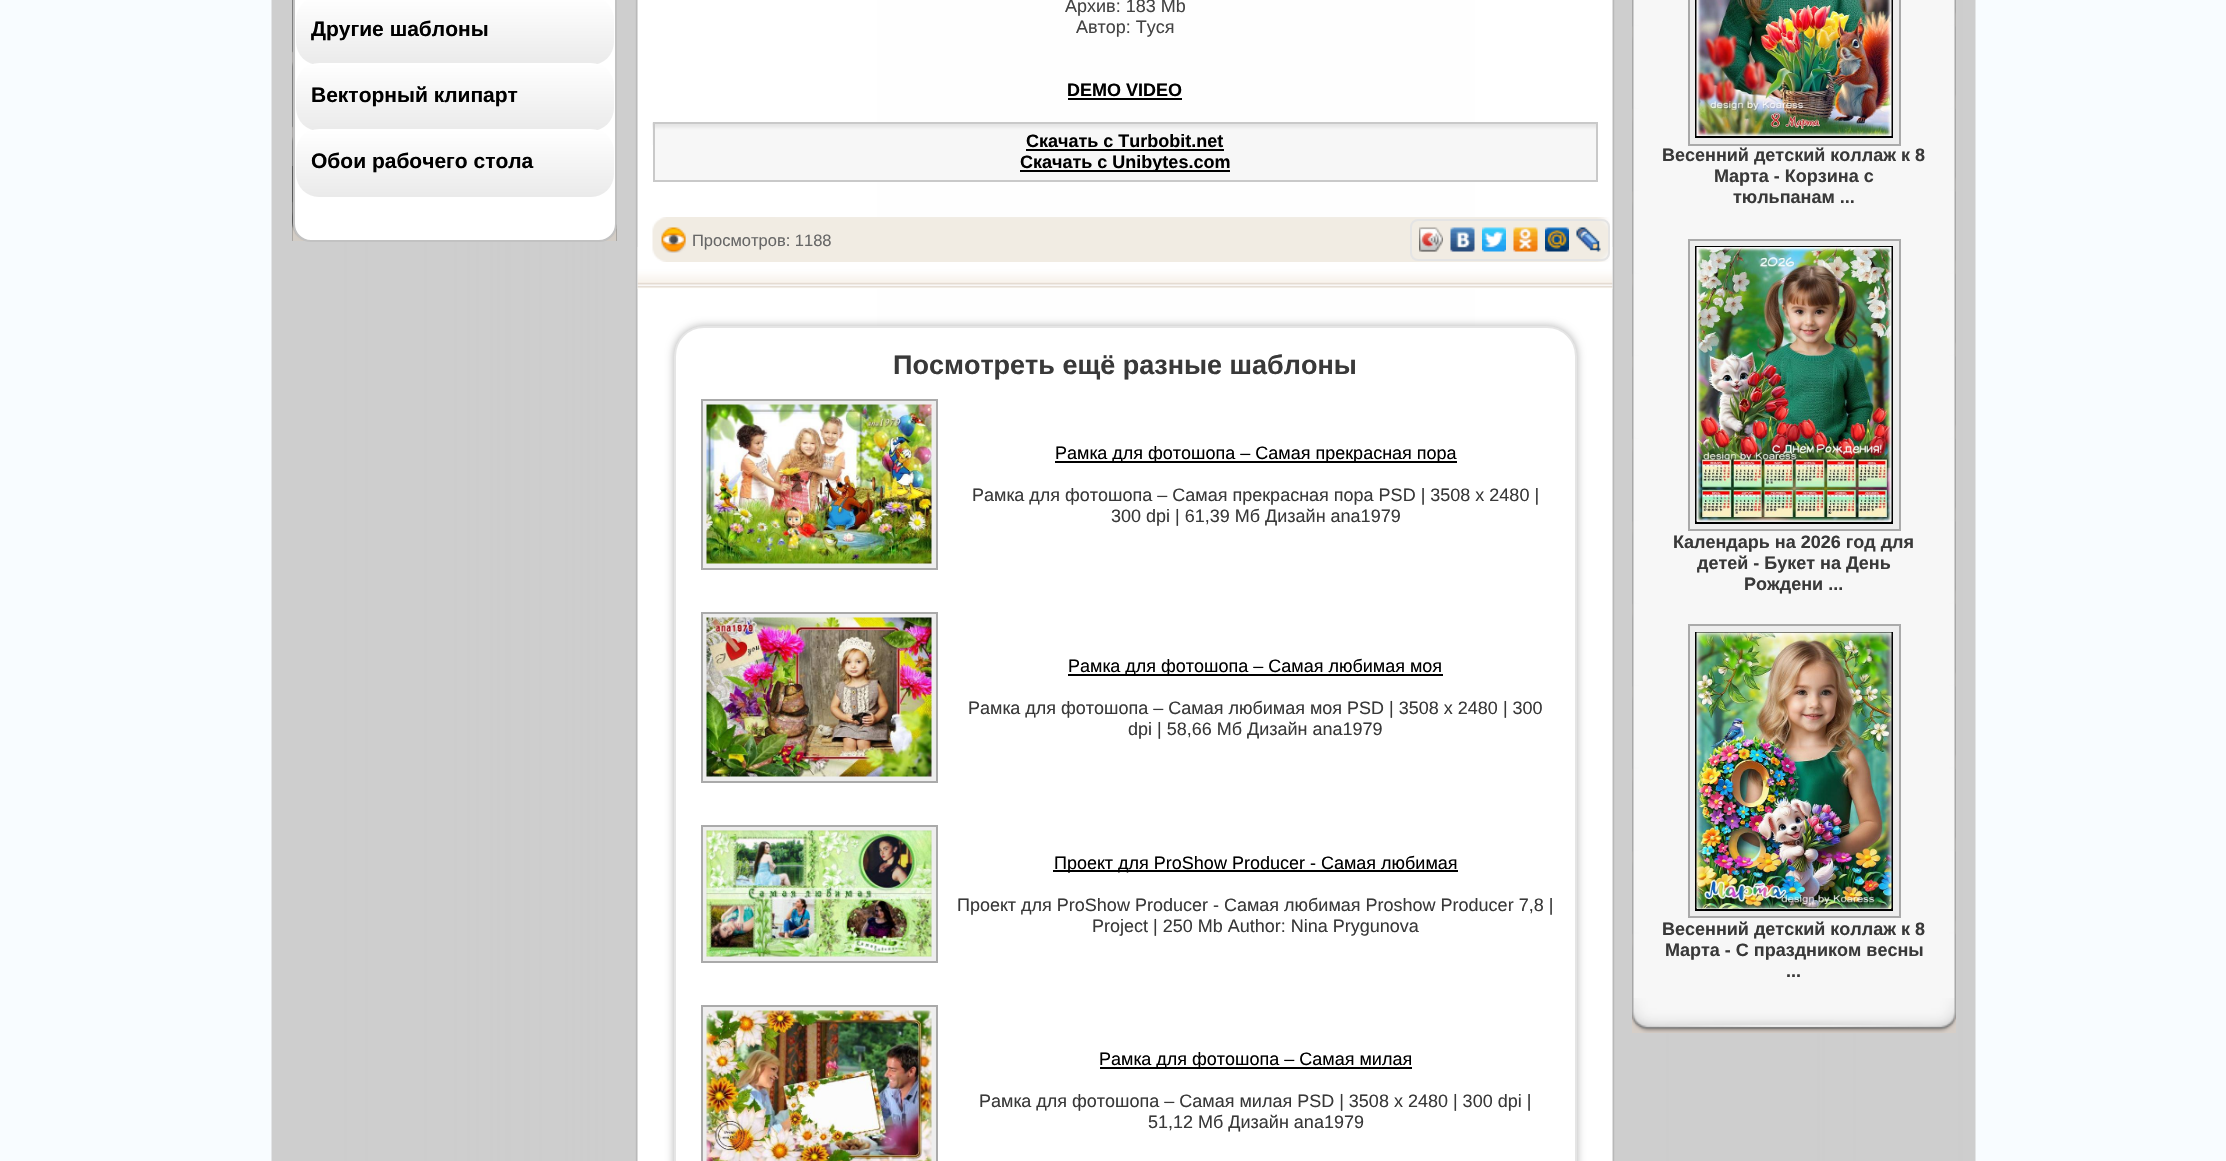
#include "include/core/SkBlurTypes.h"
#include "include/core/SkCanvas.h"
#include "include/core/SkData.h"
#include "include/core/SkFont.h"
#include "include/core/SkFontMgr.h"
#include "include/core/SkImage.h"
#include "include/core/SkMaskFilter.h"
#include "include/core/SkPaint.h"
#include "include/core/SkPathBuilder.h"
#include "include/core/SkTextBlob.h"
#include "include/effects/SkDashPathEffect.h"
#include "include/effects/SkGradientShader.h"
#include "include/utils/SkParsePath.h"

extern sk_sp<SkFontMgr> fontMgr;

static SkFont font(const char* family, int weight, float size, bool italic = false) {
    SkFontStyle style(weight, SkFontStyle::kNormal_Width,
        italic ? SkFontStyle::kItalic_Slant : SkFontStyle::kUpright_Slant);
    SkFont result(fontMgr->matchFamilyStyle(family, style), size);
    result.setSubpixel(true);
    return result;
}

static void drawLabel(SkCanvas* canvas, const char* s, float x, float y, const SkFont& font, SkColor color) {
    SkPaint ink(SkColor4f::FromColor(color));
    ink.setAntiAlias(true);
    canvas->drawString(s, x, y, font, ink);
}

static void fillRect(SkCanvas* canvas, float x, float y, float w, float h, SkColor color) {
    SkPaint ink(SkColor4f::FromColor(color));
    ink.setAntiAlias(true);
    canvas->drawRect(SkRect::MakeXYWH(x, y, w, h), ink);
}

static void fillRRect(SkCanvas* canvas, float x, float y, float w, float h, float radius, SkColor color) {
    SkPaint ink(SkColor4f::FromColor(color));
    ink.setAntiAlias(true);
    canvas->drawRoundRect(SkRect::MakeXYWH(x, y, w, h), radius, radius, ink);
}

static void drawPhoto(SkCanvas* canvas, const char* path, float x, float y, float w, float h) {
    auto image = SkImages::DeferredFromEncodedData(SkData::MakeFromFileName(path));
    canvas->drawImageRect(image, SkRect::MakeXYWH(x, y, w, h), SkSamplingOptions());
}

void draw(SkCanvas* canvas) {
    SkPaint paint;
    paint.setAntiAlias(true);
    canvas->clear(0xFFF8FCFF);
    drawPhoto(canvas, "assets/img1.png", 271, 0, 1705, 1161);
    drawPhoto(canvas, "assets/img2.png", 292, 0, 325, 241);
    drawPhoto(canvas, "assets/img3.png", 292, 166, 325, 75);
    paint.setColor(0xFFFFFFFF);
    canvas->drawRoundRect(SkRect::MakeXYWH(294, -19, 322, 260), 17, 17, paint);
    paint.setStroke(true);
    paint.setStrokeWidth(2);
    paint.setColor(0xFFC2C2C2);
    canvas->drawRoundRect(SkRect::MakeXYWH(294, -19, 322, 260), 17, 17, paint);
    paint.setStroke(false);
    {
        const SkColor colors[] = {0xFFFFFFFF, 0xFFEAEAEA};
        const float stops[] = {0.01f, 1};
        const SkPoint ends[] = {{455, -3}, {455, 65}};
        paint.setShader(SkGradientShader::MakeLinear(ends, colors, stops, 2, SkTileMode::kClamp));
        paint.setAlpha(255);
    }
    canvas->drawRoundRect(SkRect::MakeXYWH(296, -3, 318, 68), 23, 23, paint);
    SkFont font1 = font("Liberation Sans", 700, 21);
    drawLabel(canvas, "Другие шаблоны", 311, 36, font1, 0xFF000000);
    {
        const SkColor colors[] = {0xFFFFFFFF, 0xFFEAEAEA};
        const float stops[] = {0.01f, 1};
        const SkPoint ends[] = {{455, 63}, {455, 131}};
        paint.setShader(SkGradientShader::MakeLinear(ends, colors, stops, 2, SkTileMode::kClamp));
        paint.setAlpha(255);
    }
    canvas->drawRoundRect(SkRect::MakeXYWH(296, 63, 318, 68), 23, 23, paint);
    drawLabel(canvas, "Векторный клипарт", 311, 102, font1, 0xFF000000);
    {
        const SkColor colors[] = {0xFFFFFFFF, 0xFFEAEAEA};
        const float stops[] = {0.01f, 1};
        const SkPoint ends[] = {{455, 129}, {455, 197}};
        paint.setShader(SkGradientShader::MakeLinear(ends, colors, stops, 2, SkTileMode::kClamp));
        paint.setAlpha(255);
    }
    canvas->drawRoundRect(SkRect::MakeXYWH(296, 129, 318, 68), 23, 23, paint);
    drawLabel(canvas, "Обои рабочего стола", 311, 168, font1, 0xFF000000);
    drawPhoto(canvas, "assets/img4.png", 637, 247, 976, 42);
    SkFont font2 = font("Liberation Sans", 400, 18);
    drawLabel(canvas, "Архив: 183 Mb", 1065, 12, font2, 0xFF434343);
    drawLabel(canvas, "Автор: Туся", 1076, 33, font2, 0xFF434343);
    SkFont font3 = font("Liberation Sans", 700, 18);
    drawLabel(canvas, "DEMO VIDEO", 1067, 96, font3, 0xFF000000);
    fillRect(canvas, 1068, 98, 114, 2, 0xFF000000);
    fillRect(canvas, 655, 145, 941, 35, 0xFFF7F7F7);
    drawPhoto(canvas, "assets/img5.png", 652, 122, 944, 23);
    paint.setStroke(true);
    paint.setShader(nullptr);
    paint.setColor(0xFFC9C9C9);
    canvas->drawRect(SkRect::MakeXYWH(654, 123, 943, 58), paint);
    drawLabel(canvas, "Скачать с Turbobit.net", 1026, 147, font3, 0xFF000000);
    fillRect(canvas, 1026, 149, 198, 2, 0xFF000000);
    fillRect(canvas, 1020, 170, 210, 2, 0xFF000000);
    drawLabel(canvas, "Скачать с Unibytes.com", 1020, 168, font3, 0xFF000000);
    drawPhoto(canvas, "assets/img6.png", 652, 217, 958, 45);
    drawPhoto(canvas, "assets/img7.png", 661, 227, 25, 26);
    SkFont font4 = font("Liberation Sans", 400, 16.5f);
    drawLabel(canvas, "Просмотров: 1188", 692, 246, font4, 0xFF676767);
    paint.setColor(0xFFE4E4E4);
    canvas->drawRoundRect(SkRect::MakeXYWH(1411, 220, 198, 40), 7, 7, paint);
    drawPhoto(canvas, "assets/img8.png", 1419, 227, 24, 25);
    drawPhoto(canvas, "assets/img9.png", 1419, 227, 24, 25);
    drawPhoto(canvas, "assets/img10.png", 1450, 227, 25, 25);
    drawPhoto(canvas, "assets/img11.png", 1482, 227, 24, 25);
    drawPhoto(canvas, "assets/img12.png", 1513, 227, 25, 25);
    drawPhoto(canvas, "assets/img13.png", 1545, 227, 24, 25);
    drawPhoto(canvas, "assets/img14.png", 1576, 227, 25, 25);
    paint.setStroke(false);
    paint.setColor(0x4D000000);
    paint.setMaskFilter(SkMaskFilter::MakeBlur(kNormal_SkBlurStyle, 4));
    canvas->drawRoundRect(SkRect::MakeXYWH(674, 326, 903, 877), 30, 30, paint);
    paint.setMaskFilter(nullptr);
    fillRRect(canvas, 674, 326, 903, 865, 30, 0xFFFFFFFF);
    paint.setStroke(true);
    paint.setColor(0x1A000000);
    canvas->drawRoundRect(SkRect::MakeXYWH(675, 327, 901, 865), 29, 29, paint);
    SkFont font5 = font("Liberation Sans", 700, 27);
    drawLabel(canvas, "Посмотреть ещё разные шаблоны", 893, 374, font5, 0xFF393939);
    paint.setStroke(false);
    paint.setColor(0xFFEEEEEE);
    canvas->drawRect(SkRect::MakeXYWH(702, 400, 235, 169), paint);
    paint.setStroke(true);
    paint.setColor(0xFFAAAAAA);
    canvas->drawRect(SkRect::MakeXYWH(702, 400, 235, 169), paint);
    drawPhoto(canvas, "assets/img15.png", 706, 404, 226, 160);
    fillRect(canvas, 1055, 461, 402, 2, 0xFF000000);
    drawLabel(canvas, "Рамка для фотошопа – Самая прекрасная пора", 1055, 459, font2, 0xFF000000);
    drawLabel(canvas, "Рамка для фотошопа – Самая прекрасная пора PSD | 3508 x 2480 |", 972, 501, font2, 0xFF393939);
    drawLabel(canvas, "300 dpi | 61,39 Мб Дизайн аnа1979", 1111, 522, font2, 0xFF393939);
    paint.setStroke(false);
    paint.setColor(0xFFEEEEEE);
    canvas->drawRect(SkRect::MakeXYWH(702, 613, 235, 169), paint);
    paint.setStroke(true);
    paint.setColor(0xFFAAAAAA);
    canvas->drawRect(SkRect::MakeXYWH(702, 613, 235, 169), paint);
    drawPhoto(canvas, "assets/img16.png", 706, 617, 226, 160);
    fillRect(canvas, 1068, 674, 375, 2, 0xFF000000);
    drawLabel(canvas, "Рамка для фотошопа – Самая любимая моя", 1068, 672, font2, 0xFF000000);
    drawLabel(canvas, "Рамка для фотошопа – Самая любимая моя PSD | 3508 x 2480 | 300", 968, 714, font2, 0xFF393939);
    drawLabel(canvas, "dpi | 58,66 Мб Дизайн аnа1979", 1128, 735, font2, 0xFF393939);
    paint.setStroke(false);
    paint.setColor(0xFFEEEEEE);
    canvas->drawRect(SkRect::MakeXYWH(702, 826, 235, 136), paint);
    paint.setStroke(true);
    paint.setColor(0xFFAAAAAA);
    canvas->drawRect(SkRect::MakeXYWH(702, 826, 235, 136), paint);
    drawPhoto(canvas, "assets/img17.png", 706, 830, 226, 127);
    fillRect(canvas, 1053, 870, 405, 2, 0xFF000000);
    drawLabel(canvas, "Проект для ProShow Producer - Самая любимая", 1054, 869, font2, 0xFF000000);
    drawLabel(canvas, "Проект для ProShow Producer - Самая любимая Proshow Producer 7,8 |", 957, 911, font2, 0xFF393939);
    drawLabel(canvas, "Project | 250 Mb Author: Nina Prygunova", 1092, 932, font2, 0xFF393939);
    paint.setStroke(false);
    paint.setColor(0xFFEEEEEE);
    canvas->drawRect(SkRect::MakeXYWH(702, 1006, 235, 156), paint);
    paint.setStroke(true);
    paint.setColor(0xFFAAAAAA);
    canvas->drawRect(SkRect::MakeXYWH(702, 1006, 235, 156), paint);
    drawPhoto(canvas, "assets/img18.png", 706, 1010, 226, 151);
    fillRect(canvas, 1100, 1067, 312, 2, 0xFF000000);
    drawLabel(canvas, "Рамка для фотошопа – Самая милая", 1099, 1065, font2, 0xFF000000);
    drawLabel(canvas, "Рамка для фотошопа – Самая милая PSD | 3508 x 2480 | 300 dpi |", 979, 1107, font2, 0xFF393939);
    drawLabel(canvas, "51,12 Мб Дизайн аnа1979", 1148, 1128, font2, 0xFF393939);
    drawPhoto(canvas, "assets/img19.png", 1632, 0, 324, 998);
    drawPhoto(canvas, "assets/img20.png", 1632, 998, 324, 35);
    paint.setStroke(false);
    paint.setColor(0xFFEEEEEE);
    canvas->drawRect(SkRect::MakeXYWH(1689, -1, 211, 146), paint);
    paint.setStroke(true);
    paint.setColor(0xFFAAAAAA);
    canvas->drawRect(SkRect::MakeXYWH(1689, -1, 211, 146), paint);
    paint.setColor(0xFF000000);
    canvas->drawRect(SkRect::MakeXYWH(1696, -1, 196, 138), paint);
    drawPhoto(canvas, "assets/img21.png", 1696, 0, 196, 136);
    drawLabel(canvas, "Весенний детский коллаж к 8", 1662, 161, font3, 0xFF393939);
    drawLabel(canvas, "Марта - Корзина с", 1714, 182, font3, 0xFF393939);
    drawLabel(canvas, "тюльпанам ...", 1733, 203, font3, 0xFF393939);
    paint.setStroke(false);
    paint.setColor(0xFFEEEEEE);
    canvas->drawRect(SkRect::MakeXYWH(1689, 240, 211, 290), paint);
    paint.setStroke(true);
    paint.setColor(0xFFAAAAAA);
    canvas->drawRect(SkRect::MakeXYWH(1689, 240, 211, 290), paint);
    paint.setColor(0xFF000000);
    canvas->drawRect(SkRect::MakeXYWH(1696, 247, 196, 276), paint);
    drawPhoto(canvas, "assets/img22.png", 1696, 247, 196, 275);
    drawLabel(canvas, "Календарь на 2026 год для", 1673, 548, font3, 0xFF393939);
    drawLabel(canvas, "детей - Букет на День", 1697, 569, font3, 0xFF393939);
    drawLabel(canvas, "Рождени ...", 1744, 590, font3, 0xFF393939);
    paint.setStroke(false);
    paint.setColor(0xFFEEEEEE);
    canvas->drawRect(SkRect::MakeXYWH(1689, 625, 211, 292), paint);
    paint.setStroke(true);
    paint.setColor(0xFFAAAAAA);
    canvas->drawRect(SkRect::MakeXYWH(1689, 625, 211, 292), paint);
    paint.setColor(0xFF000000);
    canvas->drawRect(SkRect::MakeXYWH(1696, 633, 196, 277), paint);
    drawPhoto(canvas, "assets/img23.png", 1696, 632, 196, 277);
    drawLabel(canvas, "Весенний детский коллаж к 8", 1662, 935, font3, 0xFF393939);
    drawLabel(canvas, "Марта - С праздником весны", 1665, 956, font3, 0xFF393939);
    drawLabel(canvas, "...", 1786, 977, font3, 0xFF393939);
}
